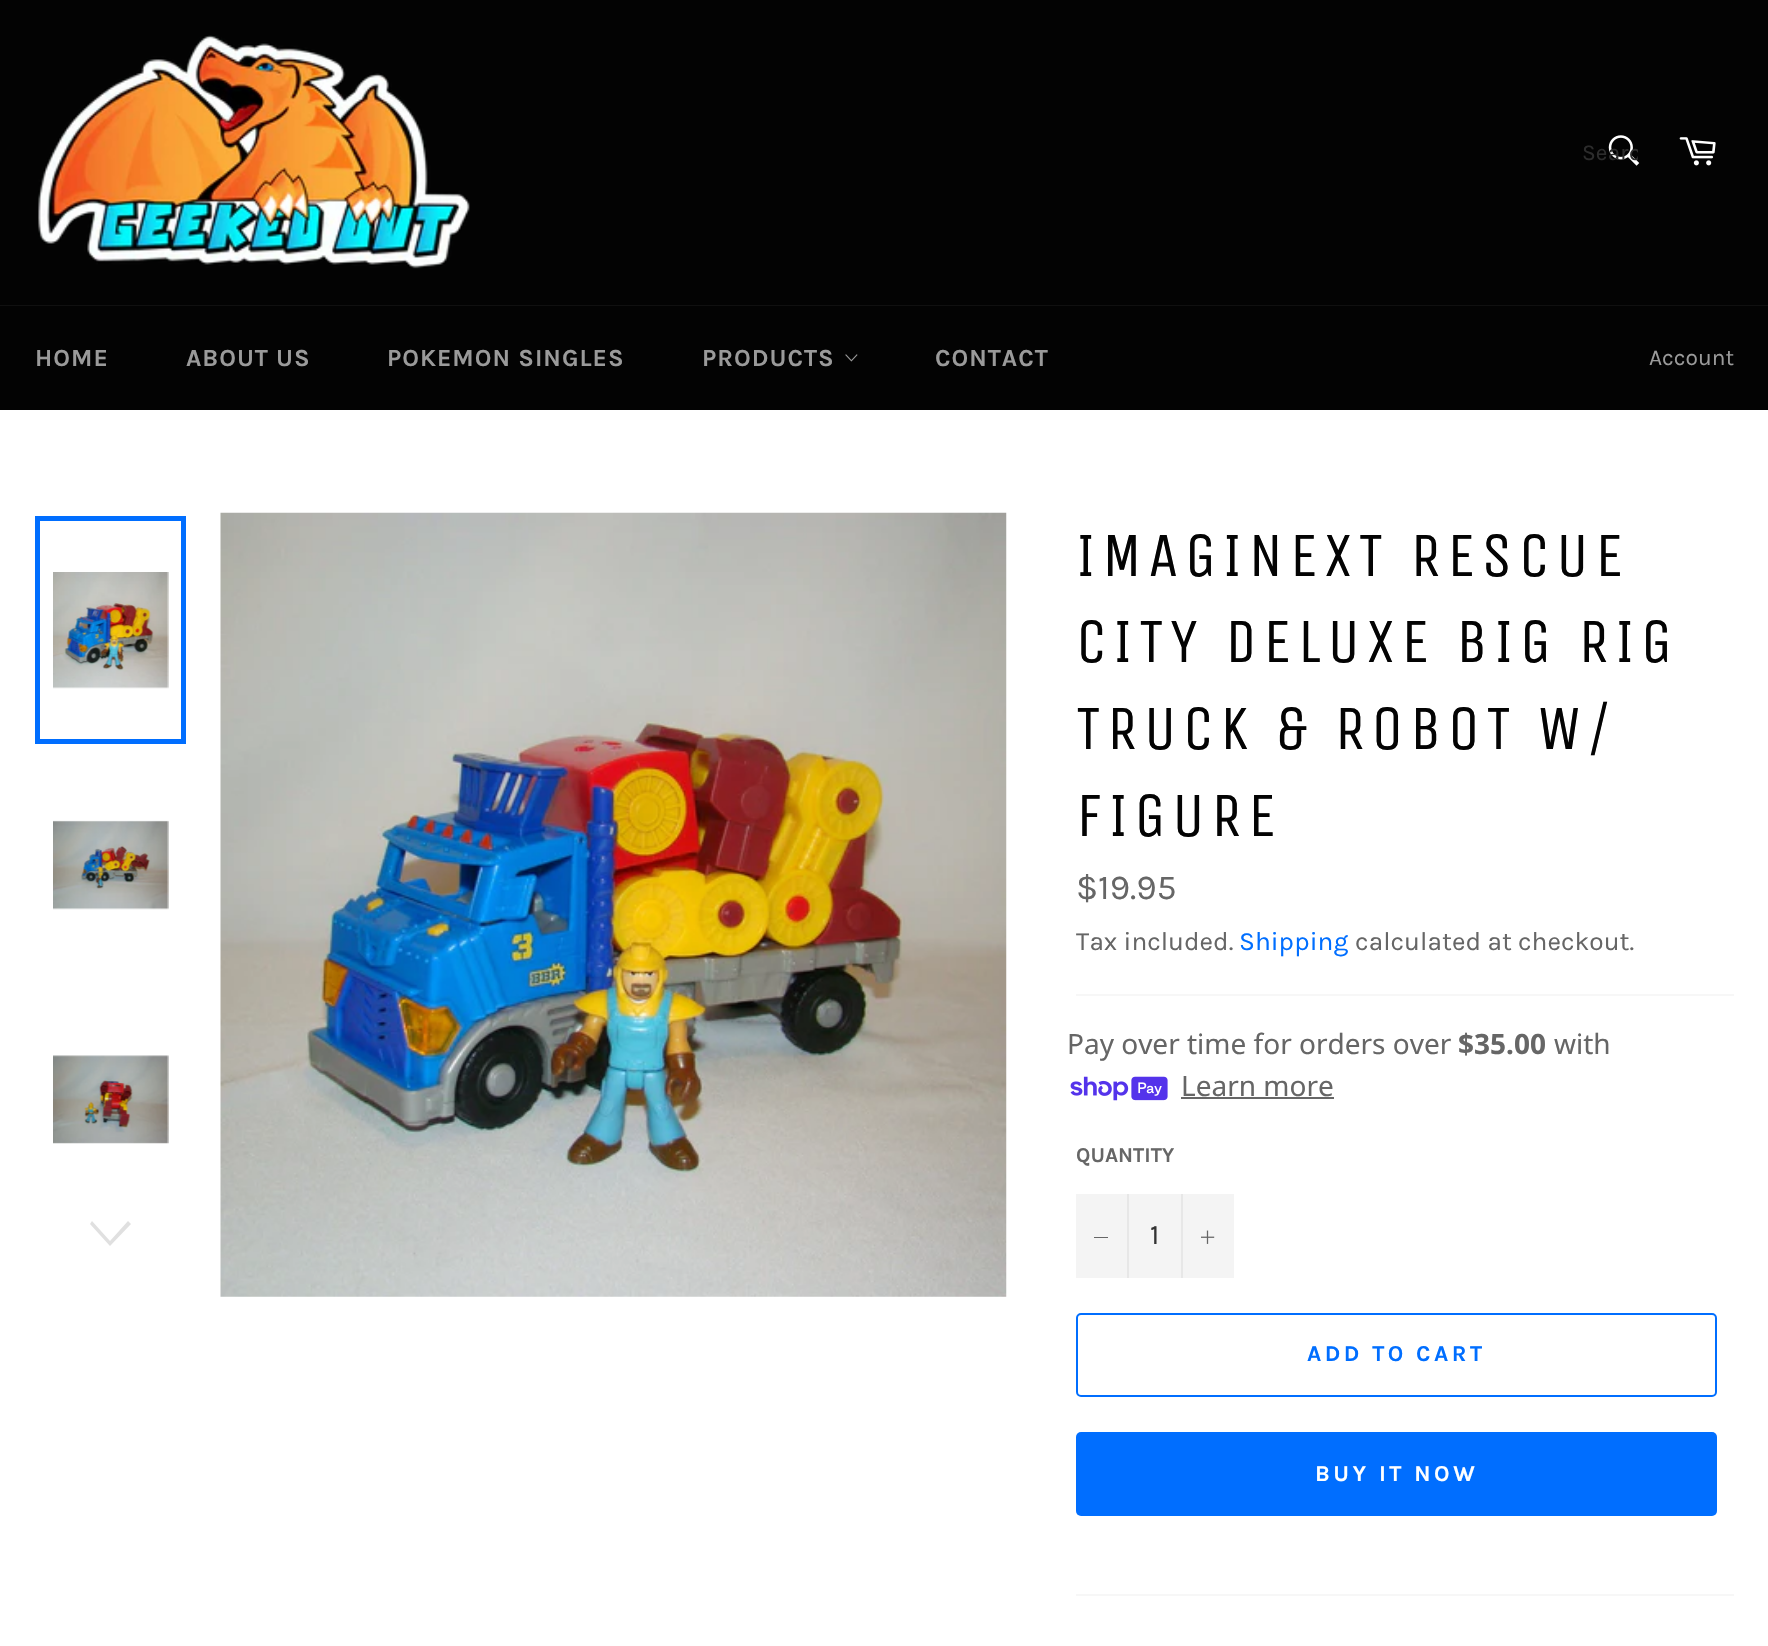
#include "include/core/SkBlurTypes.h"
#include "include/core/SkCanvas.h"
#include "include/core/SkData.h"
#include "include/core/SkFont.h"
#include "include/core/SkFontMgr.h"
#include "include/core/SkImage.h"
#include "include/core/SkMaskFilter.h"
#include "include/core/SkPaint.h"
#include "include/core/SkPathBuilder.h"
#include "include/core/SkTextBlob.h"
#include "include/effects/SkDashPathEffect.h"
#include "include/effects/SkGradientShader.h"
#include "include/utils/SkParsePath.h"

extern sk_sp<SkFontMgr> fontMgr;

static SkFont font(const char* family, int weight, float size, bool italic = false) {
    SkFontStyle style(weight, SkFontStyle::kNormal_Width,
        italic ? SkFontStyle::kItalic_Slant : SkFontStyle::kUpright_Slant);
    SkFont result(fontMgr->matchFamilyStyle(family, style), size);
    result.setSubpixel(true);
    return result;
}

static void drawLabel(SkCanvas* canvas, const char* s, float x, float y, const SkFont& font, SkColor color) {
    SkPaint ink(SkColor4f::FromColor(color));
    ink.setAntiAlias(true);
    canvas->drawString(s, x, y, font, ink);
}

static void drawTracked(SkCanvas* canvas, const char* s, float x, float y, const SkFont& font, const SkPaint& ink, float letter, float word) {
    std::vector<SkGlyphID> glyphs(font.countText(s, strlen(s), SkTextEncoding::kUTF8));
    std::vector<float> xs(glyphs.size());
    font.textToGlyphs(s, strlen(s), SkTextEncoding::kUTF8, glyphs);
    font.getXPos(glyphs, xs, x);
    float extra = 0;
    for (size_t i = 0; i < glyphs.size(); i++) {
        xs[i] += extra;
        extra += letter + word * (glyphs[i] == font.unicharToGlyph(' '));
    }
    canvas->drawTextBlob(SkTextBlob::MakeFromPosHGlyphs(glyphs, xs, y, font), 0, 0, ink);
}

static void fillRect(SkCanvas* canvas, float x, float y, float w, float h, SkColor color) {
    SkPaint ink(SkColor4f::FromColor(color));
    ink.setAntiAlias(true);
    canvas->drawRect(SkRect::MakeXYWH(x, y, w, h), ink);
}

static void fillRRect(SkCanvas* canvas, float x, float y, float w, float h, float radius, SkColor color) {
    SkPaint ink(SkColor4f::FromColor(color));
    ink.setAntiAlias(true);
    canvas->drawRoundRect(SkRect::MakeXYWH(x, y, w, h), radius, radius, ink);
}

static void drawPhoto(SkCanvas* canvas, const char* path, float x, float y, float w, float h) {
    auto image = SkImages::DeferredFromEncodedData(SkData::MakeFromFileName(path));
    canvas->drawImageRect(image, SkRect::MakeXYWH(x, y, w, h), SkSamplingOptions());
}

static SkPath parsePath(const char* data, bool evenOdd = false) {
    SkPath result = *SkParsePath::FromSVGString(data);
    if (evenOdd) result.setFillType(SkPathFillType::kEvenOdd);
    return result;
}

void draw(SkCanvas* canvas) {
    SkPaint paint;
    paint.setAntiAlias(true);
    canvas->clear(0xFF030303);
    drawPhoto(canvas, "assets/img1.png", 38, 35, 432, 234);
    drawPhoto(canvas, "assets/img2.png", 1608, 135, 32, 31);
    canvas->save();
    canvas->clipRect(SkRect::MakeXYWH(1582, 140, 56, 26));
    SkFont font1 = font("Karla", 400, 22.75f);
    drawLabel(canvas, "Searc", 1582, 160, font1, 0xFF2C2C2C);
    canvas->restore();
    drawPhoto(canvas, "assets/img3.png", 1679, 137, 37, 29);
    fillRect(canvas, 0, 305, 1768, 1, 0xFF101010);
    SkFont font2 = font("Karla", 700, 24.5f);
    paint.setColor(0xFF9A9A9A);
    drawTracked(canvas, "HOME", 35, 366, font2, paint, 1, 0);
    drawTracked(canvas, "ABOUT US", 186, 366, font2, paint, 1, 0);
    drawTracked(canvas, "POKEMON SINGLES", 387, 366, font2, paint, 1, 0);
    drawTracked(canvas, "PRODUCTS", 702, 366, font2, paint, 1, 0);
    drawPhoto(canvas, "assets/img4.png", 845, 354, 13, 8);
    drawTracked(canvas, "CONTACT", 935, 366, font2, paint, 1, 0);
    drawLabel(canvas, "Account", 1649, 365, font1, 0xFF9A9A9A);
    fillRect(canvas, 0, 410, 1768, 1236, 0xFFFFFFFF);
    drawPhoto(canvas, "assets/img5.png", 53, 572, 116, 117);
    paint.setStroke(true);
    paint.setStrokeWidth(5);
    paint.setColor(0xFF006EFF);
    canvas->drawRect(SkRect::MakeXYWH(37.5f, 518.5f, 146, 223), paint);
    drawPhoto(canvas, "assets/img6.png", 53, 820, 116, 90);
    drawPhoto(canvas, "assets/img7.png", 53, 1055, 116, 89);
    paint.setStroke(false);
    paint.setColor(0xFFE0E0E0);
    canvas->drawPath(parsePath("M128 1221L131 1224L110 1246L90 1224L92 1221L110 1241Z"), paint);
    drawPhoto(canvas, "assets/img8.png", 220, 512, 787, 785);
    SkFont font3 = font("Unica One", 400, 63);
    paint.setColor(0xFF030303);
    drawTracked(canvas, "IMAGINEXT RESCUE", 1076, 576, font3, paint, 6.25f, 0);
    drawTracked(canvas, "CITY DELUXE BIG RIG", 1076, 662, font3, paint, 6.25f, 0);
    drawTracked(canvas, "TRUCK & ROBOT W/", 1076, 749, font3, paint, 6.25f, 0);
    drawTracked(canvas, "FIGURE", 1076, 836, font3, paint, 6.25f, 0);
    SkFont font4 = font("Karla", 400, 35);
    drawLabel(canvas, "$19.95", 1076, 899, font4, 0xFF666666);
    SkFont font5 = font("Karla", 400, 26.25f);
    drawLabel(canvas, "Tax included.", 1076, 950, font5, 0xFF666666);
    drawLabel(canvas, "Shipping", 1239, 950, font5, 0xFF006EFF);
    drawLabel(canvas, "calculated at checkout.", 1355, 950, font5, 0xFF666666);
    fillRect(canvas, 1076, 994, 658, 2, 0xFFF7F7F7);
    SkFont font6 = font("Noto Sans", 400, 28);
    drawLabel(canvas, "Pay over time for orders over", 1067, 1054, font6, 0xFF666666);
    SkFont font7 = font("Noto Sans", 700, 28);
    drawLabel(canvas, "$35.00", 1458, 1054, font7, 0xFF666666);
    drawLabel(canvas, "with", 1554, 1054, font6, 0xFF666666);
    drawPhoto(canvas, "assets/img9.png", 1070, 1076, 98, 25);
    drawLabel(canvas, "Learn more", 1181, 1096, font6, 0xFF666666);
    fillRect(canvas, 1181, 1097, 153, 2, 0xFF666666);
    SkFont font8 = font("Karla", 700, 21);
    drawLabel(canvas, "QUANTITY", 1076, 1162, font8, 0xFF666666);
    fillRect(canvas, 1076, 1194, 158, 84, 0xFFF4F4F4);
    fillRect(canvas, 1127, 1194, 2, 84, 0xFFE7E7E7);
    fillRect(canvas, 1094, 1237, 14, 1, 0xFF666666);
    SkFont font9 = font("Karla", 400, 28);
    drawLabel(canvas, "1", 1150, 1244, font9, 0xFF333333);
    fillRect(canvas, 1181, 1194, 2, 84, 0xFFE7E7E7);
    drawPhoto(canvas, "assets/img10.png", 1201, 1230, 14, 14);
    paint.setStroke(true);
    paint.setStrokeWidth(2);
    paint.setColor(0xFF006EFF);
    canvas->drawRoundRect(SkRect::MakeXYWH(1077, 1314, 639, 82), 4, 4, paint);
    SkFont font10 = font("Karla", 700, 22.75f);
    paint.setStroke(false);
    drawTracked(canvas, "ADD TO CART", 1307, 1361, font10, paint, 3.5f, 0);
    fillRRect(canvas, 1076, 1432, 641, 84, 5, 0xFF006EFF);
    paint.setColor(0xFFFFFFFF);
    drawTracked(canvas, "BUY IT NOW", 1315, 1481, font10, paint, 3.5f, 0);
    fillRect(canvas, 1076, 1594, 658, 2, 0xFFF7F7F7);
}
